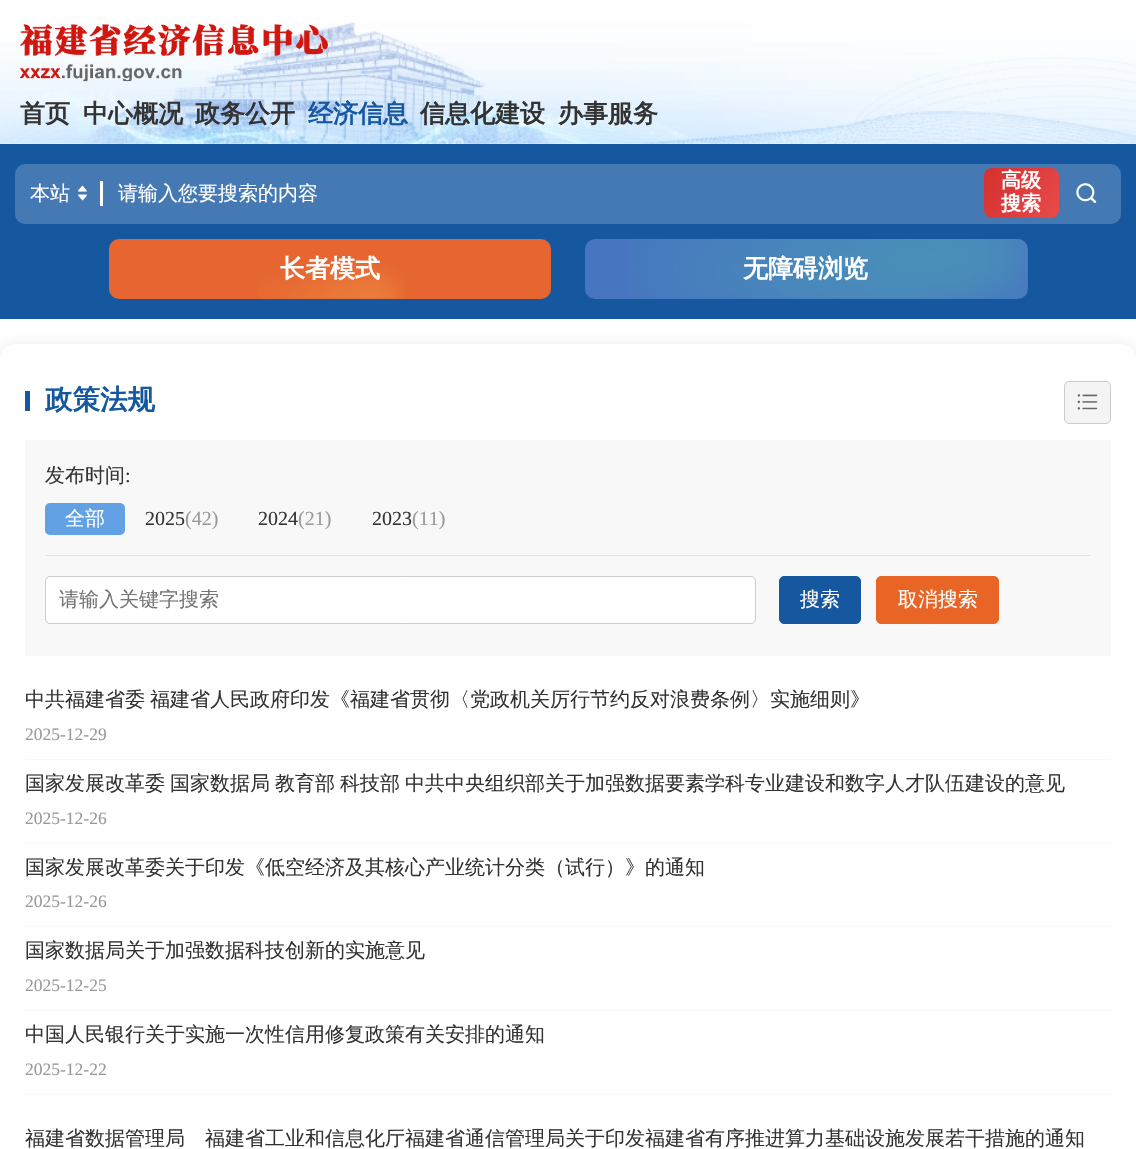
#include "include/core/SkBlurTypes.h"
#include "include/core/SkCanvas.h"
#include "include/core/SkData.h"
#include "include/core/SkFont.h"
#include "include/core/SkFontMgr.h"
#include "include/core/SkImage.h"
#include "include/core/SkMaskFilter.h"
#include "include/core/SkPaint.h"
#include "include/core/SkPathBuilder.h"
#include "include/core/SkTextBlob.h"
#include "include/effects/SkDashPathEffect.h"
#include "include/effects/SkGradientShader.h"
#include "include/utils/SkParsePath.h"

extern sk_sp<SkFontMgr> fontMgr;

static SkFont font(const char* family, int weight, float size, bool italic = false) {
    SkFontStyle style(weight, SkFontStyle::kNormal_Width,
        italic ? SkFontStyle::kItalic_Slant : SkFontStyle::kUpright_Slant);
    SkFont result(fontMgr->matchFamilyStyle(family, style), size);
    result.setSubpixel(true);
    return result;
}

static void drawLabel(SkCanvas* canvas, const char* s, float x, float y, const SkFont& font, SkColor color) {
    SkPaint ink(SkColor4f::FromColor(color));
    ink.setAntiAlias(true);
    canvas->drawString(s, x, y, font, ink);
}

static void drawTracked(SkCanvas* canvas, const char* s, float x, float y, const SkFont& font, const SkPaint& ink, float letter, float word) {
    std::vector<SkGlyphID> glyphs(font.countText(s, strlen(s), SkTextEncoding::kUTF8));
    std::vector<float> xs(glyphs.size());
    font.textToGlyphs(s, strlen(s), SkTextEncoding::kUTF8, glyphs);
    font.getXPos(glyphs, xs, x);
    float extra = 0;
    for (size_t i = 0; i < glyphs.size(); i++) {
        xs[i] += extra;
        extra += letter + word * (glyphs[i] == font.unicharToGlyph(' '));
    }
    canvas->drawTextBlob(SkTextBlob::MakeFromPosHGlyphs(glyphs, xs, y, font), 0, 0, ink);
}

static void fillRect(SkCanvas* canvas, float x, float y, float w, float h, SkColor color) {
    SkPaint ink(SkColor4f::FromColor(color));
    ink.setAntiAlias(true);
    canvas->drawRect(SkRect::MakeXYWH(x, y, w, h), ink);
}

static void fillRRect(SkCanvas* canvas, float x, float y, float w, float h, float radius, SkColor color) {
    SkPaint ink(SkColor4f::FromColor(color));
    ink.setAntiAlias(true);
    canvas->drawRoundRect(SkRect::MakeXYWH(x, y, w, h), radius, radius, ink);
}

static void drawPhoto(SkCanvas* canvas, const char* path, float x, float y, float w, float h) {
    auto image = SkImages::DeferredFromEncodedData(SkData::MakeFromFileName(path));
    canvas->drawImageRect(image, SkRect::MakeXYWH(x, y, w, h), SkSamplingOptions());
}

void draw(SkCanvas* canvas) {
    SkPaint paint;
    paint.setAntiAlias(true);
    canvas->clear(0xFFFFFFFF);
    drawPhoto(canvas, "assets/img1.png", 0, 22, 1136, 122);
    drawPhoto(canvas, "assets/img2.png", 20, 23, 308, 59);
    SkFont font1 = font("WenQuanYi Zen Hei", 700, 25);
    drawLabel(canvas, "首页", 20, 122, font1, 0xFF333333);
    drawLabel(canvas, "中心概况", 83, 122, font1, 0xFF333333);
    drawLabel(canvas, "政务公开", 195, 122, font1, 0xFF333333);
    drawLabel(canvas, "经济信息", 308, 122, font1, 0xFF1658A0);
    drawLabel(canvas, "信息化建设", 420, 122, font1, 0xFF333333);
    drawLabel(canvas, "办事服务", 558, 122, font1, 0xFF333333);
    fillRect(canvas, 0, 144, 1136, 175, 0xFF1658A0);
    fillRRect(canvas, 15, 164, 1106, 60, 10, 0xFF4579B3);
    SkFont font2 = font("WenQuanYi Zen Hei", 500, 20);
    drawLabel(canvas, "本站", 30, 200, font2, 0xFFFFFFFF);
    drawPhoto(canvas, "assets/img3.png", 78, 185, 9, 16);
    fillRect(canvas, 100, 181, 3, 25, 0xFFFFFFFF);
    drawLabel(canvas, "请输入您要搜索的内容", 118, 200, font2, 0xFFFFFFFF);
    drawPhoto(canvas, "assets/img4.png", 1076, 183, 21, 20);
    {
        const SkColor colors[] = {0xFFD43030, 0xFFE84A4A};
        const float stops[] = {0, 1};
        const SkPoint ends[] = {{983, 168}, {1059, 217}};
        paint.setShader(SkGradientShader::MakeLinear(ends, colors, stops, 2, SkTileMode::kClamp));
        paint.setAlpha(255);
    }
    canvas->drawRoundRect(SkRect::MakeXYWH(984, 168, 75, 50), 8, 8, paint);
    SkFont font3 = font("WenQuanYi Zen Hei", 700, 20);
    drawLabel(canvas, "高级", 1001, 187, font3, 0xFFFFFFFF);
    drawLabel(canvas, "搜索", 1001, 210, font3, 0xFFFFFFFF);
    fillRRect(canvas, 109, 239, 442, 60, 10, 0xFFE66531);
    drawPhoto(canvas, "assets/img5.png", 258, 263, 147, 36);
    drawLabel(canvas, "长者模式", 280, 277, font1, 0xFFFFFFFF);
    fillRRect(canvas, 585, 239, 443, 60, 10, 0xFF4674C0);
    drawPhoto(canvas, "assets/img6.png", 628, 239, 399, 60);
    drawLabel(canvas, "无障碍浏览", 743, 277, font1, 0xFFFFFFFF);
    paint.setShader(nullptr);
    paint.setColor(0x1A000000);
    paint.setMaskFilter(SkMaskFilter::MakeBlur(kNormal_SkBlurStyle, 7.5f));
    canvas->drawRoundRect(SkRect::MakeXYWH(0, 346, 1136, 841), 15, 15, paint);
    paint.setMaskFilter(nullptr);
    fillRRect(canvas, 0, 344, 1136, 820, 15, 0xFFFFFFFF);
    fillRect(canvas, 25, 391, 5, 20, 0xFF1658A0);
    SkFont font4 = font("WenQuanYi Zen Hei", 700, 27.5f);
    drawLabel(canvas, "政策法规", 45, 409, font4, 0xFF1658A0);
    paint.setColor(0xFFF4F4F5);
    canvas->drawRoundRect(SkRect::MakeXYWH(1064.5f, 381.5f, 46, 42), 4.5f, 4.5f, paint);
    paint.setStroke(true);
    paint.setStrokeWidth(1);
    paint.setColor(0xFFCCCCCC);
    canvas->drawRoundRect(SkRect::MakeXYWH(1064.5f, 381.5f, 46, 42), 4.5f, 4.5f, paint);
    drawPhoto(canvas, "assets/img7.png", 1077, 394, 21, 16);
    fillRect(canvas, 25, 440, 1086, 216, 0xFFF8F8F8);
    drawLabel(canvas, "发布时间", 45, 482, font2, 0xFF333333);
    SkFont font5 = font("Liberation Serif", 400, 20);
    drawLabel(canvas, ":", 125, 482, font5, 0xFF333333);
    fillRRect(canvas, 45, 503, 80, 32, 5, 0xFF63A1E5);
    drawLabel(canvas, "全部", 65, 525, font2, 0xFFFFFFFF);
    drawLabel(canvas, "2025", 145, 525, font5, 0xFF333333);
    drawLabel(canvas, "(42)", 185, 525, font5, 0xFF999999);
    drawLabel(canvas, "2024", 258, 525, font5, 0xFF333333);
    drawLabel(canvas, "(21)", 298, 525, font5, 0xFF999999);
    drawLabel(canvas, "2023", 372, 525, font5, 0xFF333333);
    drawLabel(canvas, "(11)", 412, 525, font5, 0xFF999999);
    fillRect(canvas, 45, 555, 1046, 1, 0xFFE2E2E2);
    paint.setStroke(false);
    paint.setColor(0xFFFFFFFF);
    canvas->drawRoundRect(SkRect::MakeXYWH(45.5f, 576.5f, 710, 47), 4.5f, 4.5f, paint);
    paint.setStroke(true);
    paint.setColor(0xFFCCCCCC);
    canvas->drawRoundRect(SkRect::MakeXYWH(45.5f, 576.5f, 710, 47), 4.5f, 4.5f, paint);
    drawLabel(canvas, "请输入关键字搜索", 59, 606, font2, 0xFF757575);
    paint.setStroke(false);
    paint.setColor(0xFF1658A0);
    canvas->drawRoundRect(SkRect::MakeXYWH(779.5f, 576.5f, 81, 47), 4.5f, 4.5f, paint);
    paint.setStroke(true);
    canvas->drawRoundRect(SkRect::MakeXYWH(779.5f, 576.5f, 81, 47), 4.5f, 4.5f, paint);
    drawLabel(canvas, "搜索", 800, 606, font2, 0xFFFFFFFF);
    paint.setStroke(false);
    paint.setColor(0xFFE96525);
    canvas->drawRoundRect(SkRect::MakeXYWH(876.5f, 576.5f, 122, 47), 4.5f, 4.5f, paint);
    paint.setStroke(true);
    canvas->drawRoundRect(SkRect::MakeXYWH(876.5f, 576.5f, 122, 47), 4.5f, 4.5f, paint);
    drawLabel(canvas, "取消搜索", 898, 606, font2, 0xFFFFFFFF);
    fillRect(canvas, 25, 759, 1086, 1, 0xFFF8F8F8);
    paint.setStroke(false);
    paint.setColor(0xFF333333);
    drawTracked(canvas, "中共福建省委 福建省人民政府印发《福建省贯彻〈党政机关厉行节约反对浪费条例〉实施细则》", 25, 706, font2, paint, 0, -1);
    SkFont font6 = font("Liberation Serif", 400, 17.5f);
    drawLabel(canvas, "2025-12-29", 25, 740, font6, 0xFF999999);
    fillRect(canvas, 25, 843, 1086, 1, 0xFFF8F8F8);
    drawTracked(canvas, "国家发展改革委 国家数据局 教育部 科技部 中共中央组织部关于加强数据要素学科专业建设和数字人才队伍建设的意见", 25, 790, font2, paint, 0, -1);
    drawLabel(canvas, "2025-12-26", 25, 824, font6, 0xFF999999);
    fillRect(canvas, 25, 926, 1086, 1, 0xFFF8F8F8);
    drawLabel(canvas, "国家发展改革委关于印发《低空经济及其核心产业统计分类（试行）》的通知", 25, 874, font2, 0xFF333333);
    drawLabel(canvas, "2025-12-26", 25, 907, font6, 0xFF999999);
    fillRect(canvas, 25, 1010, 1086, 1, 0xFFF8F8F8);
    drawLabel(canvas, "国家数据局关于加强数据科技创新的实施意见", 25, 957, font2, 0xFF333333);
    drawLabel(canvas, "2025-12-25", 25, 991, font6, 0xFF999999);
    drawLabel(canvas, "中国人民银行关于实施一次性信用修复政策有关安排的通知", 25, 1041, font2, 0xFF333333);
    drawLabel(canvas, "2025-12-22", 25, 1075, font6, 0xFF999999);
    fillRect(canvas, 25, 1094, 1086, 1, 0xFFF8F8F8);
    drawLabel(canvas, "福建省数据管理局　福建省工业和信息化厅福建省通信管理局关于印发福建省有序推进算力基础设施发展若干措施的通知", 25, 1145, font2, 0xFF333333);
}
